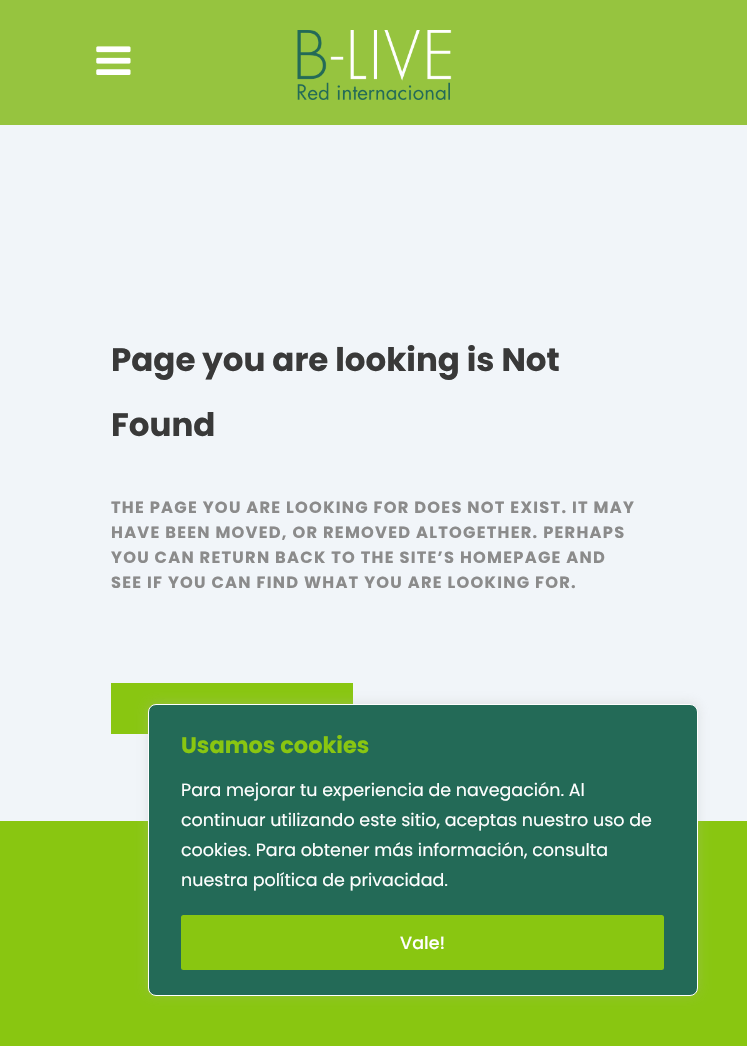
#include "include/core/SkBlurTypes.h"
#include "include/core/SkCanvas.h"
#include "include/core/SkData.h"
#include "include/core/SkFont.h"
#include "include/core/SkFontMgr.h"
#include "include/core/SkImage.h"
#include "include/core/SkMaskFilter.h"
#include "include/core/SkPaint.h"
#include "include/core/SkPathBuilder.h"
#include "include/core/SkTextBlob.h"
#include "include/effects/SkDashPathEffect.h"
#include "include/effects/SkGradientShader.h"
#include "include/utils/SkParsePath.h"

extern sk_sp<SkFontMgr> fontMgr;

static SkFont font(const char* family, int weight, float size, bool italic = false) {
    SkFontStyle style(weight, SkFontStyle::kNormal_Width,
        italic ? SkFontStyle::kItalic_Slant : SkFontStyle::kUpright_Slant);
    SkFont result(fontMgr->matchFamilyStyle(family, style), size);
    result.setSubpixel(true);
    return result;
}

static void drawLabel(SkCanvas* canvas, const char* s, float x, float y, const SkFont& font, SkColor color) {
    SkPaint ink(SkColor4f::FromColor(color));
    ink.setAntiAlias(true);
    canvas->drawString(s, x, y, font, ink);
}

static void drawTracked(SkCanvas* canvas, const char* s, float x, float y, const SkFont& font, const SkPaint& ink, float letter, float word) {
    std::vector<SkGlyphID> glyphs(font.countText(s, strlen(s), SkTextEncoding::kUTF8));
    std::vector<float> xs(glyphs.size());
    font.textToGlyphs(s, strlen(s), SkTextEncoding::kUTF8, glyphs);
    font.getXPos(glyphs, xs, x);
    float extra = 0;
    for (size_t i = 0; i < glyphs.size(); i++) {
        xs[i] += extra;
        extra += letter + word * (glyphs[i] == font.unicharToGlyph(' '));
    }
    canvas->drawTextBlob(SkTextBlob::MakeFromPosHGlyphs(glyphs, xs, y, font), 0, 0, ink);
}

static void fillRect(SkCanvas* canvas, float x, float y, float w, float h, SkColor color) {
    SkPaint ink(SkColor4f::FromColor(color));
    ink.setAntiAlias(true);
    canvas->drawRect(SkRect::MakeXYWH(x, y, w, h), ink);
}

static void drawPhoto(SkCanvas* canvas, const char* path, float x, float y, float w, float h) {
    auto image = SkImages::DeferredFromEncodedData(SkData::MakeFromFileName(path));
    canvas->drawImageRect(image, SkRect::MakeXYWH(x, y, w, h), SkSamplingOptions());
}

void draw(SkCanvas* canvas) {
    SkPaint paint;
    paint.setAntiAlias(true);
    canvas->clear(0xFFF1F5F9);
    fillRect(canvas, 0, 0, 747, 125, 0xFF96C43F);
    drawPhoto(canvas, "assets/img1.png", 96, 46, 35, 29);
    drawPhoto(canvas, "assets/img2.png", 297, 30, 155, 70);
    SkFont font1 = font("Poppins", 700, 32.5f);
    drawLabel(canvas, "Page you are looking is Not", 111, 371, font1, 0xFF393939);
    drawLabel(canvas, "Found", 111, 436, font1, 0xFF393939);
    SkFont font2 = font("Poppins", 700, 16.25f);
    paint.setColor(0xFF8B8B8B);
    drawTracked(canvas, "THE PAGE YOU ARE LOOKING FOR DOES NOT EXIST. IT MAY", 111, 513, font2, paint, 1.25f, 0);
    drawTracked(canvas, "HAVE BEEN MOVED, OR REMOVED ALTOGETHER. PERHAPS", 111, 538, font2, paint, 1.25f, 0);
    drawTracked(canvas, "YOU CAN RETURN BACK TO THE SITE’S HOMEPAGE AND", 111, 563, font2, paint, 1.25f, 0);
    drawTracked(canvas, "SEE IF YOU CAN FIND WHAT YOU ARE LOOKING FOR.", 111, 588, font2, paint, 1.25f, 0);
    fillRect(canvas, 111, 683, 242, 51, 0xFF89C611);
    fillRect(canvas, 0, 821, 747, 225, 0xFF89C611);
    paint.setColor(0x4DACABAB);
    paint.setMaskFilter(SkMaskFilter::MakeBlur(kNormal_SkBlurStyle, 6));
    canvas->drawRoundRect(SkRect::MakeXYWH(148, 703, 550, 292), 8, 8, paint);
    paint.setMaskFilter(nullptr);
    paint.setColor(0xFF236A57);
    canvas->drawRoundRect(SkRect::MakeXYWH(148.5f, 704.5f, 549, 291), 7.5f, 7.5f, paint);
    paint.setStroke(true);
    paint.setStrokeWidth(1);
    paint.setColor(0xFFFFFFFF);
    canvas->drawRoundRect(SkRect::MakeXYWH(148.5f, 704.5f, 549, 291), 7.5f, 7.5f, paint);
    SkFont font3 = font("Poppins", 700, 22.5f);
    drawLabel(canvas, "Usamos cookies", 181, 753, font3, 0xFF89C611);
    SkFont font4 = font("Poppins", 400, 17.5f);
    drawLabel(canvas, "Para mejorar tu experiencia de navegación. Al", 181, 796, font4, 0xFFFFFFFF);
    drawLabel(canvas, "continuar utilizando este sitio, aceptas nuestro uso de", 181, 826, font4, 0xFFFFFFFF);
    drawLabel(canvas, "cookies. Para obtener más información, consulta", 181, 856, font4, 0xFFFFFFFF);
    drawLabel(canvas, "nuestra política de privacidad.", 181, 886, font4, 0xFFFFFFFF);
    paint.setStroke(false);
    paint.setColor(0xFF89C611);
    canvas->drawRoundRect(SkRect::MakeXYWH(182.5f, 916.5f, 480, 52), 1, 1, paint);
    paint.setStroke(true);
    paint.setStrokeWidth(3);
    canvas->drawRoundRect(SkRect::MakeXYWH(182.5f, 916.5f, 480, 52), 1, 1, paint);
    SkFont font5 = font("Poppins", 500, 17.5f);
    drawLabel(canvas, "Vale!", 400, 949, font5, 0xFFFFFFFF);
}
